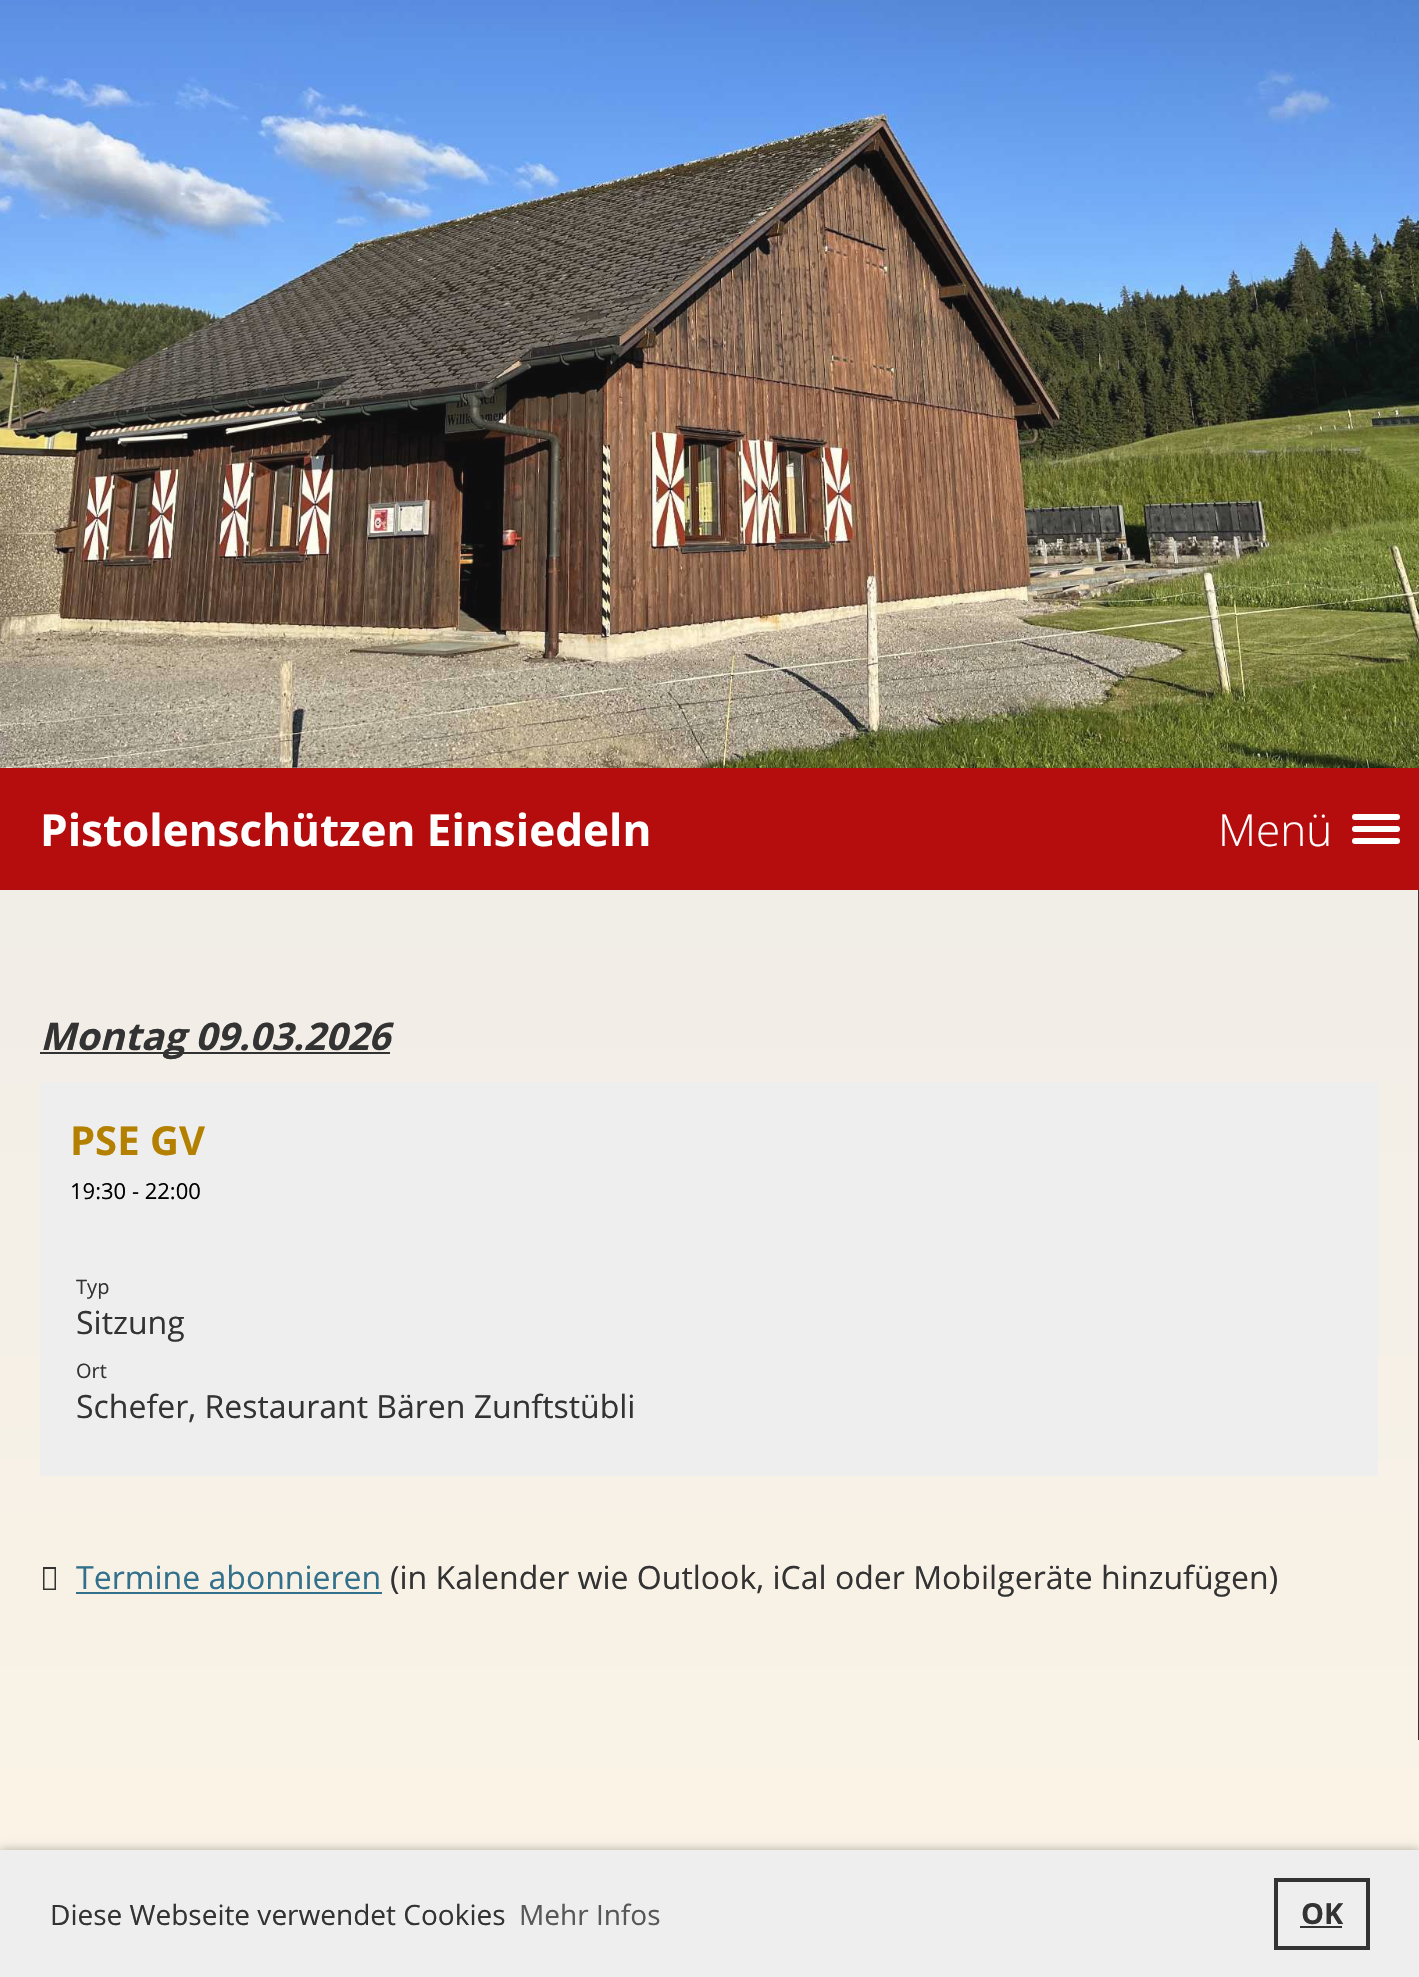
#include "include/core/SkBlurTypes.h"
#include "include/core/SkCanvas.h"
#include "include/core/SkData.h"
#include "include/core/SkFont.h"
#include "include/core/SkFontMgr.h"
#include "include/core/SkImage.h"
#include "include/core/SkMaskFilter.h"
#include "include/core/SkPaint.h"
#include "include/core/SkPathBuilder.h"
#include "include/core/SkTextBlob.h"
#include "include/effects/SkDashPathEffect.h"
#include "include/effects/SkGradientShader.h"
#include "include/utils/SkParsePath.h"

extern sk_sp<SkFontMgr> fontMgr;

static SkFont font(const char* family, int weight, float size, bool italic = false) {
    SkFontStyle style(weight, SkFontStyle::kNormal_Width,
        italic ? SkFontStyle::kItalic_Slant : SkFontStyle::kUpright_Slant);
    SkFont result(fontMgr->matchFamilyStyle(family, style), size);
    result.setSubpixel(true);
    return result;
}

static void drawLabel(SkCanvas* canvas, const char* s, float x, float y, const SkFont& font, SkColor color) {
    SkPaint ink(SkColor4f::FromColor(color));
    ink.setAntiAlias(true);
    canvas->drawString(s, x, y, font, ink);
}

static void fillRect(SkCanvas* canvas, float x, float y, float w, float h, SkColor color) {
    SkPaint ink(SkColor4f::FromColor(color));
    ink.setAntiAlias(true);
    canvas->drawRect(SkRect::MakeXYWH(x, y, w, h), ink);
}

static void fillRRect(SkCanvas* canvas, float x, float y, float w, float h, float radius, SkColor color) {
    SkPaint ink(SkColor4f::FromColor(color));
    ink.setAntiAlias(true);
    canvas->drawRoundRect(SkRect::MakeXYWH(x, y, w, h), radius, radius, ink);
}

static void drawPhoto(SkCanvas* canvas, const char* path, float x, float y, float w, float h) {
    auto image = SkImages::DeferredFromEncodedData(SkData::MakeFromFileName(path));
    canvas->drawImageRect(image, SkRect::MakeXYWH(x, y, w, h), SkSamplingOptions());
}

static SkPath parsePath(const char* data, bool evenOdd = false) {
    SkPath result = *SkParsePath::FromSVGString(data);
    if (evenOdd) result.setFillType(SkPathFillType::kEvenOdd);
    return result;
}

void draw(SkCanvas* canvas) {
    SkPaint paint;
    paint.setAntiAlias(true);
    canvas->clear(0xFFFFFFFF);
    drawPhoto(canvas, "assets/img1.png", 0, 0, 1419, 768);
    fillRect(canvas, 0, 768, 1419, 122, 0xFFB50D0D);
    SkFont font1 = font("Open Sans", 700, 44);
    drawLabel(canvas, "Pistolenschützen Einsiedeln", 40, 846, font1, 0xFFFFFFFF);
    SkFont font2 = font("Open Sans", 300, 44);
    drawLabel(canvas, "Menü", 1218, 846, font2, 0xFFFFFFFF);
    fillRRect(canvas, 1352, 814, 48, 6, 3, 0xFFFFFFFF);
    fillRRect(canvas, 1352, 826, 48, 6, 3, 0xFFFFFFFF);
    fillRRect(canvas, 1352, 838, 48, 6, 3, 0xFFFFFFFF);
    {
        const SkColor colors[] = {0xFFE8E8E8, 0xFFFCF4E6};
        const float stops[] = {0, 1};
        const SkPoint ends[] = {{710, -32}, {710, 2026}};
        paint.setShader(SkGradientShader::MakeLinear(ends, colors, stops, 2, SkTileMode::kClamp));
        paint.setAlpha(255);
    }
    canvas->drawRect(SkRect::MakeXYWH(0, 890, 1419, 960), paint);
    fillRect(canvas, 40, 1052, 350, 2, 0xFF333333);
    SkFont font3 = font("Open Sans", 700, 38, true);
    drawLabel(canvas, "Montag 09.03.2026", 40, 1050, font3, 0xFF333333);
    fillRect(canvas, 40, 1082, 1338, 394, 0xFFEEEEEE);
    SkFont font4 = font("Open Sans", 700, 40);
    drawLabel(canvas, "PSE GV", 70, 1155, font4, 0xFFB38000);
    SkFont font5 = font("Open Sans", 400, 22);
    drawLabel(canvas, "19:30 - 22:00", 70, 1199, font5, 0xFF000000);
    SkFont font6 = font("Open Sans", 400, 20);
    drawLabel(canvas, "Typ", 76, 1294, font6, 0xFF333333);
    SkFont font7 = font("Open Sans", 400, 32);
    drawLabel(canvas, "Sitzung", 76, 1334, font7, 0xFF333333);
    drawLabel(canvas, "Ort", 76, 1378, font6, 0xFF333333);
    drawLabel(canvas, "Schefer, Restaurant Bären Zunftstübli", 76, 1418, font7, 0xFF333333);
    paint.setShader(nullptr);
    paint.setColor(0xFF333333);
    canvas->drawPath(parsePath("M43 1590V1567H56V1590ZM44.5 1588.5H54.5V1569H44.5Z"), paint);
    drawLabel(canvas, "Termine abonnieren", 76, 1589, font7, 0xFF33708C);
    fillRect(canvas, 76, 1592, 306, 2, 0xFF33708C);
    drawLabel(canvas, "(in Kalender wie Outlook, iCal oder Mobilgeräte hinzufügen)", 390, 1589, font7, 0xFF333333);
    fillRect(canvas, 1418, 890, 1, 850, 0xFF353535);
    paint.setColor(0x4D000000);
    paint.setMaskFilter(SkMaskFilter::MakeBlur(kNormal_SkBlurStyle, 5));
    canvas->drawRect(SkRect::MakeXYWH(0, 1850, 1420, 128), paint);
    paint.setMaskFilter(nullptr);
    fillRect(canvas, 0, 1850, 1419, 127, 0xFFEEEEEE);
    SkFont font8 = font("Open Sans", 400, 28);
    drawLabel(canvas, "Diese Webseite verwendet Cookies", 50, 1925, font8, 0xFF333333);
    drawLabel(canvas, "Mehr Infos", 519, 1925, font8, 0xFF585858);
    paint.setStroke(true);
    paint.setStrokeWidth(4);
    paint.setColor(0xFF333333);
    canvas->drawRect(SkRect::MakeXYWH(1276, 1880, 92, 68), paint);
    SkFont font9 = font("Open Sans", 700, 29);
    drawLabel(canvas, "OK", 1301, 1924, font9, 0xFF333333);
    fillRect(canvas, 1300, 1926, 42, 2, 0xFF333333);
}
